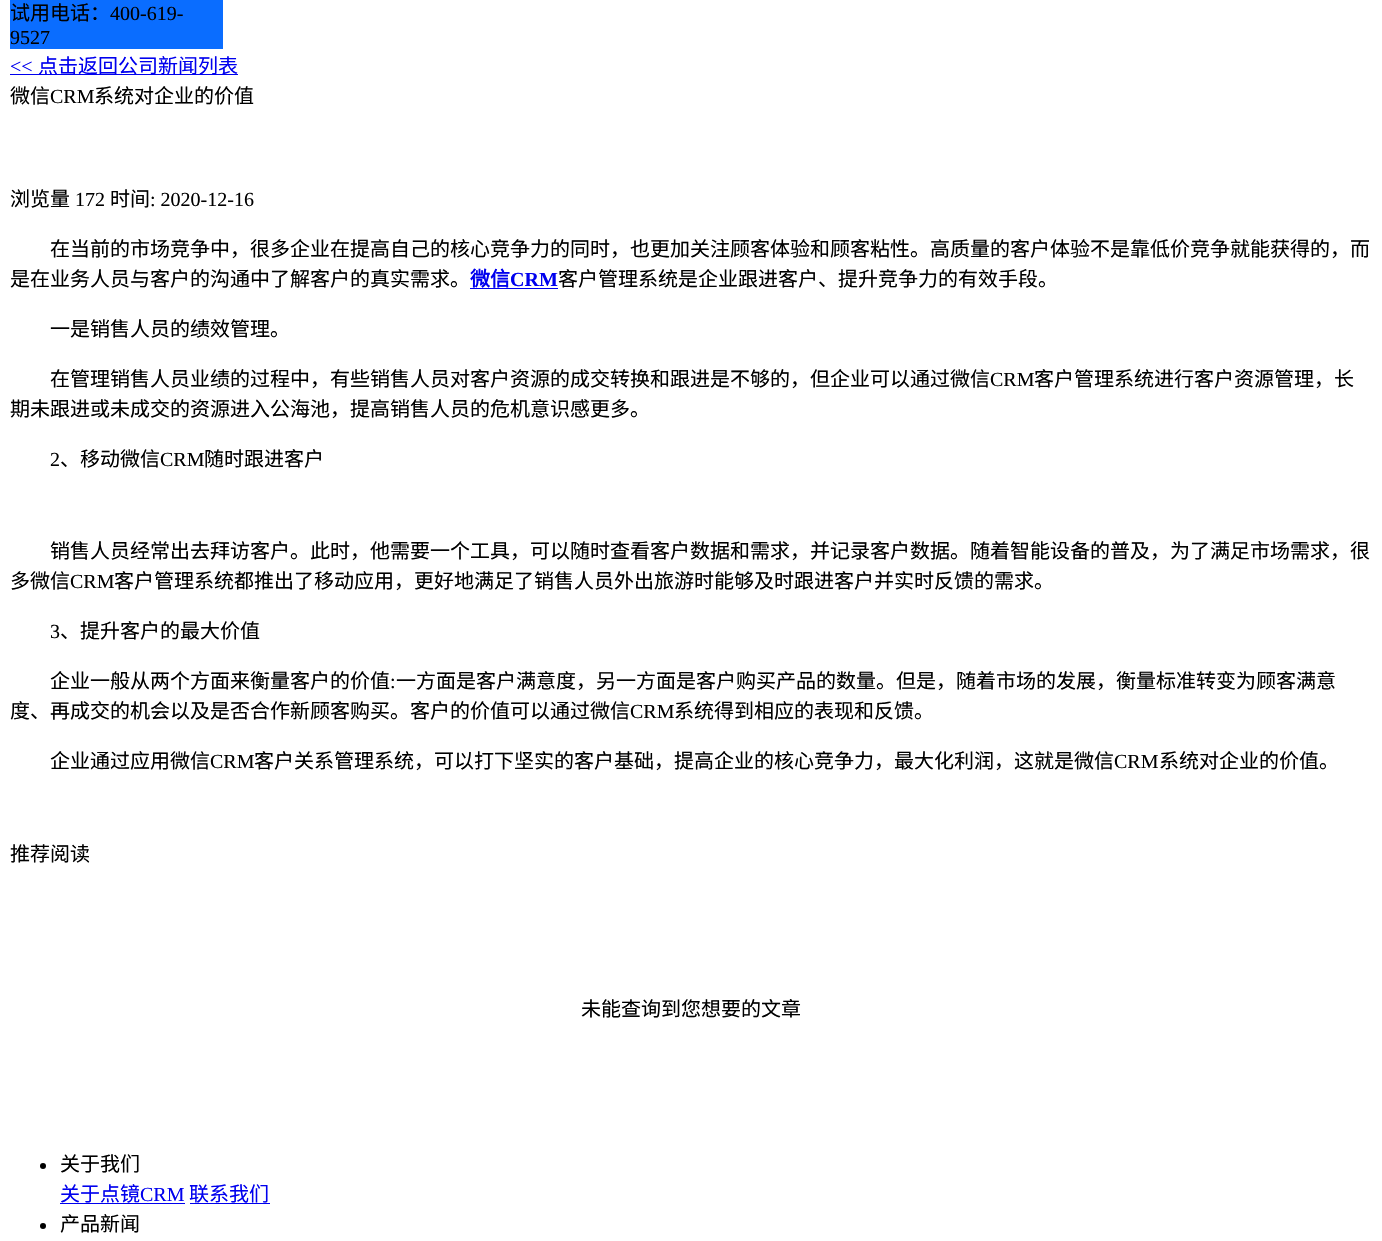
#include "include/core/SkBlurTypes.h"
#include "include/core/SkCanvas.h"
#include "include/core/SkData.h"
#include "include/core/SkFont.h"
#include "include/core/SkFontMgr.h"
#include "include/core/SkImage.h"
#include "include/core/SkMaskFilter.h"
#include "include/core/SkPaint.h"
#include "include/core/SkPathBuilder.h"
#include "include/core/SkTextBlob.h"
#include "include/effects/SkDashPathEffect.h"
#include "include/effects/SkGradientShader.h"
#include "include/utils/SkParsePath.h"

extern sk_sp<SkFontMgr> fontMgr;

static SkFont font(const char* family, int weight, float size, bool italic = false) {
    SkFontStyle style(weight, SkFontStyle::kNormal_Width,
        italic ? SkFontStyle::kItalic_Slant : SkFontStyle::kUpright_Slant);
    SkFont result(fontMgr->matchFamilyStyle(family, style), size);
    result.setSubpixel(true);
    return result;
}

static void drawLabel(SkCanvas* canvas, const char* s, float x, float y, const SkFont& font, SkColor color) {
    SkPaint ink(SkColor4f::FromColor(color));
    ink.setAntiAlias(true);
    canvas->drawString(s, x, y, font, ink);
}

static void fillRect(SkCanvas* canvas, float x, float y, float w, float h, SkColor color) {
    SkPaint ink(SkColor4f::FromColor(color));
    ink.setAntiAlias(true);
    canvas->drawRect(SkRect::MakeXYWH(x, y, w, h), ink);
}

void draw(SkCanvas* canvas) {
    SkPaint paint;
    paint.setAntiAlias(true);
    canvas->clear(0xFFFFFFFF);
    fillRect(canvas, 10, 0, 213, 49, 0xFF0A6DFF);
    SkFont font1 = font("Noto Sans CJK SC", 400, 20);
    drawLabel(canvas, "试用电话：", 10, 20, font1, 0xFF000000);
    SkFont font2 = font("Liberation Serif", 400, 20);
    drawLabel(canvas, "400-619-", 110, 20, font2, 0xFF000000);
    drawLabel(canvas, "9527", 10, 44, font2, 0xFF000000);
    drawLabel(canvas, "<<", 10, 73, font2, 0xFF0000EE);
    fillRect(canvas, 10, 74, 228, 1, 0xFF0000EE);
    drawLabel(canvas, "点击返回公司新闻列表", 38, 73, font1, 0xFF0000EE);
    drawLabel(canvas, "微信", 10, 103, font1, 0xFF000000);
    drawLabel(canvas, "CRM", 50, 103, font2, 0xFF000000);
    drawLabel(canvas, "系统对企业的价值", 94, 103, font1, 0xFF000000);
    drawLabel(canvas, "浏览量", 10, 206, font1, 0xFF000000);
    drawLabel(canvas, "172", 75, 206, font2, 0xFF000000);
    drawLabel(canvas, "时间", 110, 206, font1, 0xFF000000);
    drawLabel(canvas, ": 2020-12-16", 150, 206, font2, 0xFF000000);
    drawLabel(canvas, "在当前的市场竞争中，很多企业在提高自己的核心竞争力的同时，也更加关注顾客体验和顾客粘性。高质量的客户体验不是靠低价竞争就能获得的，而", 50, 256, font1, 0xFF000000);
    drawLabel(canvas, "是在业务人员与客户的沟通中了解客户的真实需求。", 10, 286, font1, 0xFF000000);
    SkFont font3 = font("Noto Sans CJK SC", 700, 20);
    drawLabel(canvas, "微信", 470, 286, font3, 0xFF0000EE);
    SkFont font4 = font("Liberation Serif", 700, 20);
    drawLabel(canvas, "CRM", 510, 286, font4, 0xFF0000EE);
    fillRect(canvas, 470, 288, 88, 1, 0xFF0000EE);
    drawLabel(canvas, "客户管理系统是企业跟进客户、提升竞争力的有效手段。", 558, 286, font1, 0xFF000000);
    drawLabel(canvas, "一是销售人员的绩效管理。", 50, 336, font1, 0xFF000000);
    drawLabel(canvas, "在管理销售人员业绩的过程中，有些销售人员对客户资源的成交转换和跟进是不够的，但企业可以通过微信", 50, 386, font1, 0xFF000000);
    drawLabel(canvas, "CRM", 990, 386, font2, 0xFF000000);
    drawLabel(canvas, "客户管理系统进行客户资源管理，长", 1034, 386, font1, 0xFF000000);
    drawLabel(canvas, "期未跟进或未成交的资源进入公海池，提高销售人员的危机意识感更多。", 10, 416, font1, 0xFF000000);
    drawLabel(canvas, "2", 50, 466, font2, 0xFF000000);
    drawLabel(canvas, "、移动微信", 60, 466, font1, 0xFF000000);
    drawLabel(canvas, "CRM", 160, 466, font2, 0xFF000000);
    drawLabel(canvas, "随时跟进客户", 204, 466, font1, 0xFF000000);
    drawLabel(canvas, "销售人员经常出去拜访客户。此时，他需要一个工具，可以随时查看客户数据和需求，并记录客户数据。随着智能设备的普及，为了满足市场需求，很", 50, 558, font1, 0xFF000000);
    drawLabel(canvas, "多微信", 10, 588, font1, 0xFF000000);
    drawLabel(canvas, "CRM", 70, 588, font2, 0xFF000000);
    drawLabel(canvas, "客户管理系统都推出了移动应用，更好地满足了销售人员外出旅游时能够及时跟进客户并实时反馈的需求。", 114, 588, font1, 0xFF000000);
    drawLabel(canvas, "3", 50, 638, font2, 0xFF000000);
    drawLabel(canvas, "、提升客户的最大价值", 60, 638, font1, 0xFF000000);
    drawLabel(canvas, "企业一般从两个方面来衡量客户的价值", 50, 688, font1, 0xFF000000);
    drawLabel(canvas, ":", 390, 688, font2, 0xFF000000);
    drawLabel(canvas, "一方面是客户满意度，另一方面是客户购买产品的数量。但是，随着市场的发展，衡量标准转变为顾客满意", 396, 688, font1, 0xFF000000);
    drawLabel(canvas, "度、再成交的机会以及是否合作新顾客购买。客户的价值可以通过微信", 10, 718, font1, 0xFF000000);
    drawLabel(canvas, "CRM", 630, 718, font2, 0xFF000000);
    drawLabel(canvas, "系统得到相应的表现和反馈。", 674, 718, font1, 0xFF000000);
    drawLabel(canvas, "企业通过应用微信", 50, 768, font1, 0xFF000000);
    drawLabel(canvas, "CRM", 210, 768, font2, 0xFF000000);
    drawLabel(canvas, "客户关系管理系统，可以打下坚实的客户基础，提高企业的核心竞争力，最大化利润，这就是微信", 254, 768, font1, 0xFF000000);
    drawLabel(canvas, "CRM", 1114, 768, font2, 0xFF000000);
    drawLabel(canvas, "系统对企业的价值。", 1159, 768, font1, 0xFF000000);
    drawLabel(canvas, "推荐阅读", 10, 861, font1, 0xFF000000);
    drawLabel(canvas, "未能查询到您想要的文章", 581, 1016, font1, 0xFF000000);
    paint.setColor(0xFF000000);
    canvas->drawCircle(43, 1166, 3, paint);
    drawLabel(canvas, "关于我们", 60, 1171, font1, 0xFF000000);
    drawLabel(canvas, "关于点镜", 60, 1201, font1, 0xFF0000EE);
    drawLabel(canvas, "CRM", 140, 1201, font2, 0xFF0000EE);
    fillRect(canvas, 60, 1203, 125, 1, 0xFF0000EE);
    drawLabel(canvas, "联系我们", 189, 1201, font1, 0xFF0000EE);
    fillRect(canvas, 190, 1203, 80, 1, 0xFF0000EE);
    canvas->drawCircle(43, 1226, 3, paint);
    drawLabel(canvas, "产品新闻", 60, 1231, font1, 0xFF000000);
}
